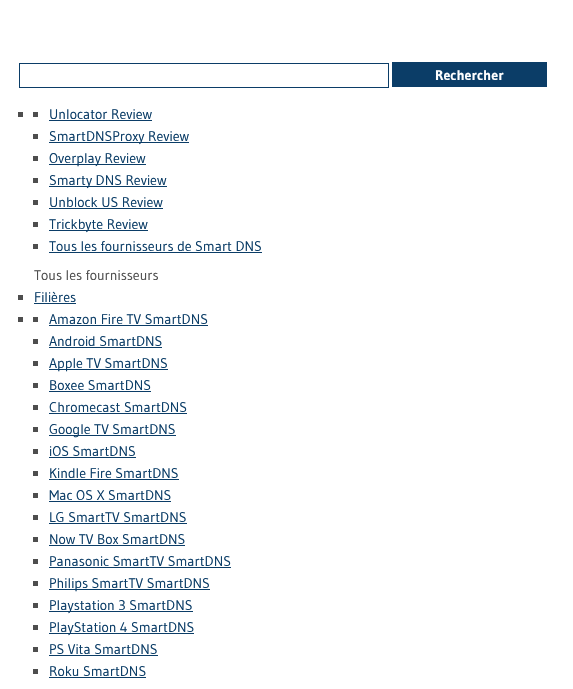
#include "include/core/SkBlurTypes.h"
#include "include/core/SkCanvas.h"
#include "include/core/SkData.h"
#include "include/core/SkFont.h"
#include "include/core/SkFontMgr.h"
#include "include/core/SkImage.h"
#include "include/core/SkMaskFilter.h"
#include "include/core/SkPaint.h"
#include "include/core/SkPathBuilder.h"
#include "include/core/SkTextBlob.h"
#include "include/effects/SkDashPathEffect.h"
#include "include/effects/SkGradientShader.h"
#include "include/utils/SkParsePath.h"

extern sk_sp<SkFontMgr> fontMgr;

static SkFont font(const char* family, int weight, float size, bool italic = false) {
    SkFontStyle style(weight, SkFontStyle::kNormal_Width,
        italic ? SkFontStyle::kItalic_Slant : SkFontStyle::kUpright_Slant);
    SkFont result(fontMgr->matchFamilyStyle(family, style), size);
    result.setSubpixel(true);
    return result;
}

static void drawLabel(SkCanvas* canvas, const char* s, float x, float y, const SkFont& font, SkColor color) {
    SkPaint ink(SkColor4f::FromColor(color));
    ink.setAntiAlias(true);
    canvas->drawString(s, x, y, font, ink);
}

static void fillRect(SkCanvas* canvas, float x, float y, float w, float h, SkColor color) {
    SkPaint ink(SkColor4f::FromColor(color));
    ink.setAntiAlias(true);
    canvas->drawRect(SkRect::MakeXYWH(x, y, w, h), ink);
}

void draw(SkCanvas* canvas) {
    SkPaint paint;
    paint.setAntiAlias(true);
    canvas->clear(0xFFFFFFFF);
    paint.setStroke(true);
    paint.setStrokeWidth(1);
    paint.setColor(0xFF0B3D67);
    canvas->drawRect(SkRect::MakeXYWH(19.5f, 63.5f, 369, 24), paint);
    fillRect(canvas, 392, 62, 155, 25, 0xFF0B3D67);
    SkFont font1 = font("Gudea", 700, 14);
    drawLabel(canvas, "Rechercher", 435, 80, font1, 0xFFFFFFFF);
    fillRect(canvas, 18, 112, 5, 5, 0xFF4E4E4E);
    fillRect(canvas, 33, 112, 5, 5, 0xFF4E4E4E);
    SkFont font2 = font("Gudea", 400, 14);
    drawLabel(canvas, "Unlocator Review", 49, 119, font2, 0xFF0B3D67);
    fillRect(canvas, 49, 120, 103, 1, 0xFF0B3D67);
    fillRect(canvas, 33, 134, 5, 5, 0xFF4E4E4E);
    fillRect(canvas, 49, 142, 140, 1, 0xFF0B3D67);
    drawLabel(canvas, "SmartDNSProxy Review", 49, 141, font2, 0xFF0B3D67);
    fillRect(canvas, 33, 156, 5, 5, 0xFF4E4E4E);
    fillRect(canvas, 49, 164, 97, 1, 0xFF0B3D67);
    drawLabel(canvas, "Overplay Review", 49, 163, font2, 0xFF0B3D67);
    fillRect(canvas, 33, 178, 5, 5, 0xFF4E4E4E);
    fillRect(canvas, 49, 186, 118, 1, 0xFF0B3D67);
    drawLabel(canvas, "Smarty DNS Review", 49, 185, font2, 0xFF0B3D67);
    fillRect(canvas, 33, 200, 5, 5, 0xFF4E4E4E);
    drawLabel(canvas, "Unblock US Review", 49, 207, font2, 0xFF0B3D67);
    fillRect(canvas, 49, 208, 114, 1, 0xFF0B3D67);
    fillRect(canvas, 33, 222, 5, 5, 0xFF4E4E4E);
    fillRect(canvas, 49, 230, 99, 1, 0xFF0B3D67);
    drawLabel(canvas, "Trickbyte Review", 49, 229, font2, 0xFF0B3D67);
    fillRect(canvas, 33, 244, 5, 5, 0xFF4E4E4E);
    drawLabel(canvas, "Tous les fournisseurs de Smart DNS", 49, 251, font2, 0xFF0B3D67);
    fillRect(canvas, 49, 252, 213, 1, 0xFF0B3D67);
    drawLabel(canvas, "Tous les fournisseurs", 34, 280, font2, 0xFF4E4E4E);
    fillRect(canvas, 18, 295, 5, 5, 0xFF4E4E4E);
    drawLabel(canvas, "Filières", 34, 302, font2, 0xFF0B3D67);
    fillRect(canvas, 34, 303, 42, 1, 0xFF0B3D67);
    fillRect(canvas, 18, 317, 5, 5, 0xFF4E4E4E);
    fillRect(canvas, 33, 317, 5, 5, 0xFF4E4E4E);
    drawLabel(canvas, "Amazon Fire TV SmartDNS", 49, 324, font2, 0xFF0B3D67);
    fillRect(canvas, 49, 325, 159, 1, 0xFF0B3D67);
    fillRect(canvas, 33, 339, 5, 5, 0xFF4E4E4E);
    drawLabel(canvas, "Android SmartDNS", 49, 346, font2, 0xFF0B3D67);
    fillRect(canvas, 49, 347, 113, 1, 0xFF0B3D67);
    fillRect(canvas, 33, 361, 5, 5, 0xFF4E4E4E);
    fillRect(canvas, 49, 369, 119, 1, 0xFF0B3D67);
    drawLabel(canvas, "Apple TV SmartDNS", 49, 368, font2, 0xFF0B3D67);
    fillRect(canvas, 33, 383, 5, 5, 0xFF4E4E4E);
    drawLabel(canvas, "Boxee SmartDNS", 49, 390, font2, 0xFF0B3D67);
    fillRect(canvas, 49, 391, 102, 1, 0xFF0B3D67);
    fillRect(canvas, 33, 405, 5, 5, 0xFF4E4E4E);
    drawLabel(canvas, "Chromecast SmartDNS", 49, 412, font2, 0xFF0B3D67);
    fillRect(canvas, 49, 413, 138, 1, 0xFF0B3D67);
    fillRect(canvas, 33, 427, 5, 5, 0xFF4E4E4E);
    fillRect(canvas, 49, 435, 127, 1, 0xFF0B3D67);
    drawLabel(canvas, "Google TV SmartDNS", 49, 434, font2, 0xFF0B3D67);
    fillRect(canvas, 33, 449, 5, 5, 0xFF4E4E4E);
    drawLabel(canvas, "iOS SmartDNS", 49, 456, font2, 0xFF0B3D67);
    fillRect(canvas, 49, 457, 87, 1, 0xFF0B3D67);
    fillRect(canvas, 33, 471, 5, 5, 0xFF4E4E4E);
    drawLabel(canvas, "Kindle Fire SmartDNS", 49, 478, font2, 0xFF0B3D67);
    fillRect(canvas, 49, 479, 130, 1, 0xFF0B3D67);
    fillRect(canvas, 33, 493, 5, 5, 0xFF4E4E4E);
    drawLabel(canvas, "Mac OS X SmartDNS", 49, 500, font2, 0xFF0B3D67);
    fillRect(canvas, 49, 501, 122, 1, 0xFF0B3D67);
    fillRect(canvas, 33, 515, 5, 5, 0xFF4E4E4E);
    drawLabel(canvas, "LG SmartTV SmartDNS", 49, 522, font2, 0xFF0B3D67);
    fillRect(canvas, 49, 523, 138, 1, 0xFF0B3D67);
    fillRect(canvas, 33, 537, 5, 5, 0xFF4E4E4E);
    drawLabel(canvas, "Now TV Box SmartDNS", 49, 544, font2, 0xFF0B3D67);
    fillRect(canvas, 49, 545, 136, 1, 0xFF0B3D67);
    fillRect(canvas, 33, 559, 5, 5, 0xFF4E4E4E);
    drawLabel(canvas, "Panasonic SmartTV SmartDNS", 49, 566, font2, 0xFF0B3D67);
    fillRect(canvas, 49, 567, 182, 1, 0xFF0B3D67);
    fillRect(canvas, 33, 581, 5, 5, 0xFF4E4E4E);
    fillRect(canvas, 49, 589, 161, 1, 0xFF0B3D67);
    drawLabel(canvas, "Philips SmartTV SmartDNS", 49, 588, font2, 0xFF0B3D67);
    fillRect(canvas, 33, 603, 5, 5, 0xFF4E4E4E);
    fillRect(canvas, 49, 611, 144, 1, 0xFF0B3D67);
    drawLabel(canvas, "Playstation 3 SmartDNS", 49, 610, font2, 0xFF0B3D67);
    fillRect(canvas, 33, 625, 5, 5, 0xFF4E4E4E);
    fillRect(canvas, 49, 633, 145, 1, 0xFF0B3D67);
    drawLabel(canvas, "PlayStation 4 SmartDNS", 49, 632, font2, 0xFF0B3D67);
    fillRect(canvas, 33, 647, 5, 5, 0xFF4E4E4E);
    drawLabel(canvas, "PS Vita SmartDNS", 49, 654, font2, 0xFF0B3D67);
    fillRect(canvas, 49, 655, 109, 1, 0xFF0B3D67);
    fillRect(canvas, 33, 669, 5, 5, 0xFF4E4E4E);
    drawLabel(canvas, "Roku SmartDNS", 49, 676, font2, 0xFF0B3D67);
    fillRect(canvas, 49, 677, 97, 1, 0xFF0B3D67);
}
